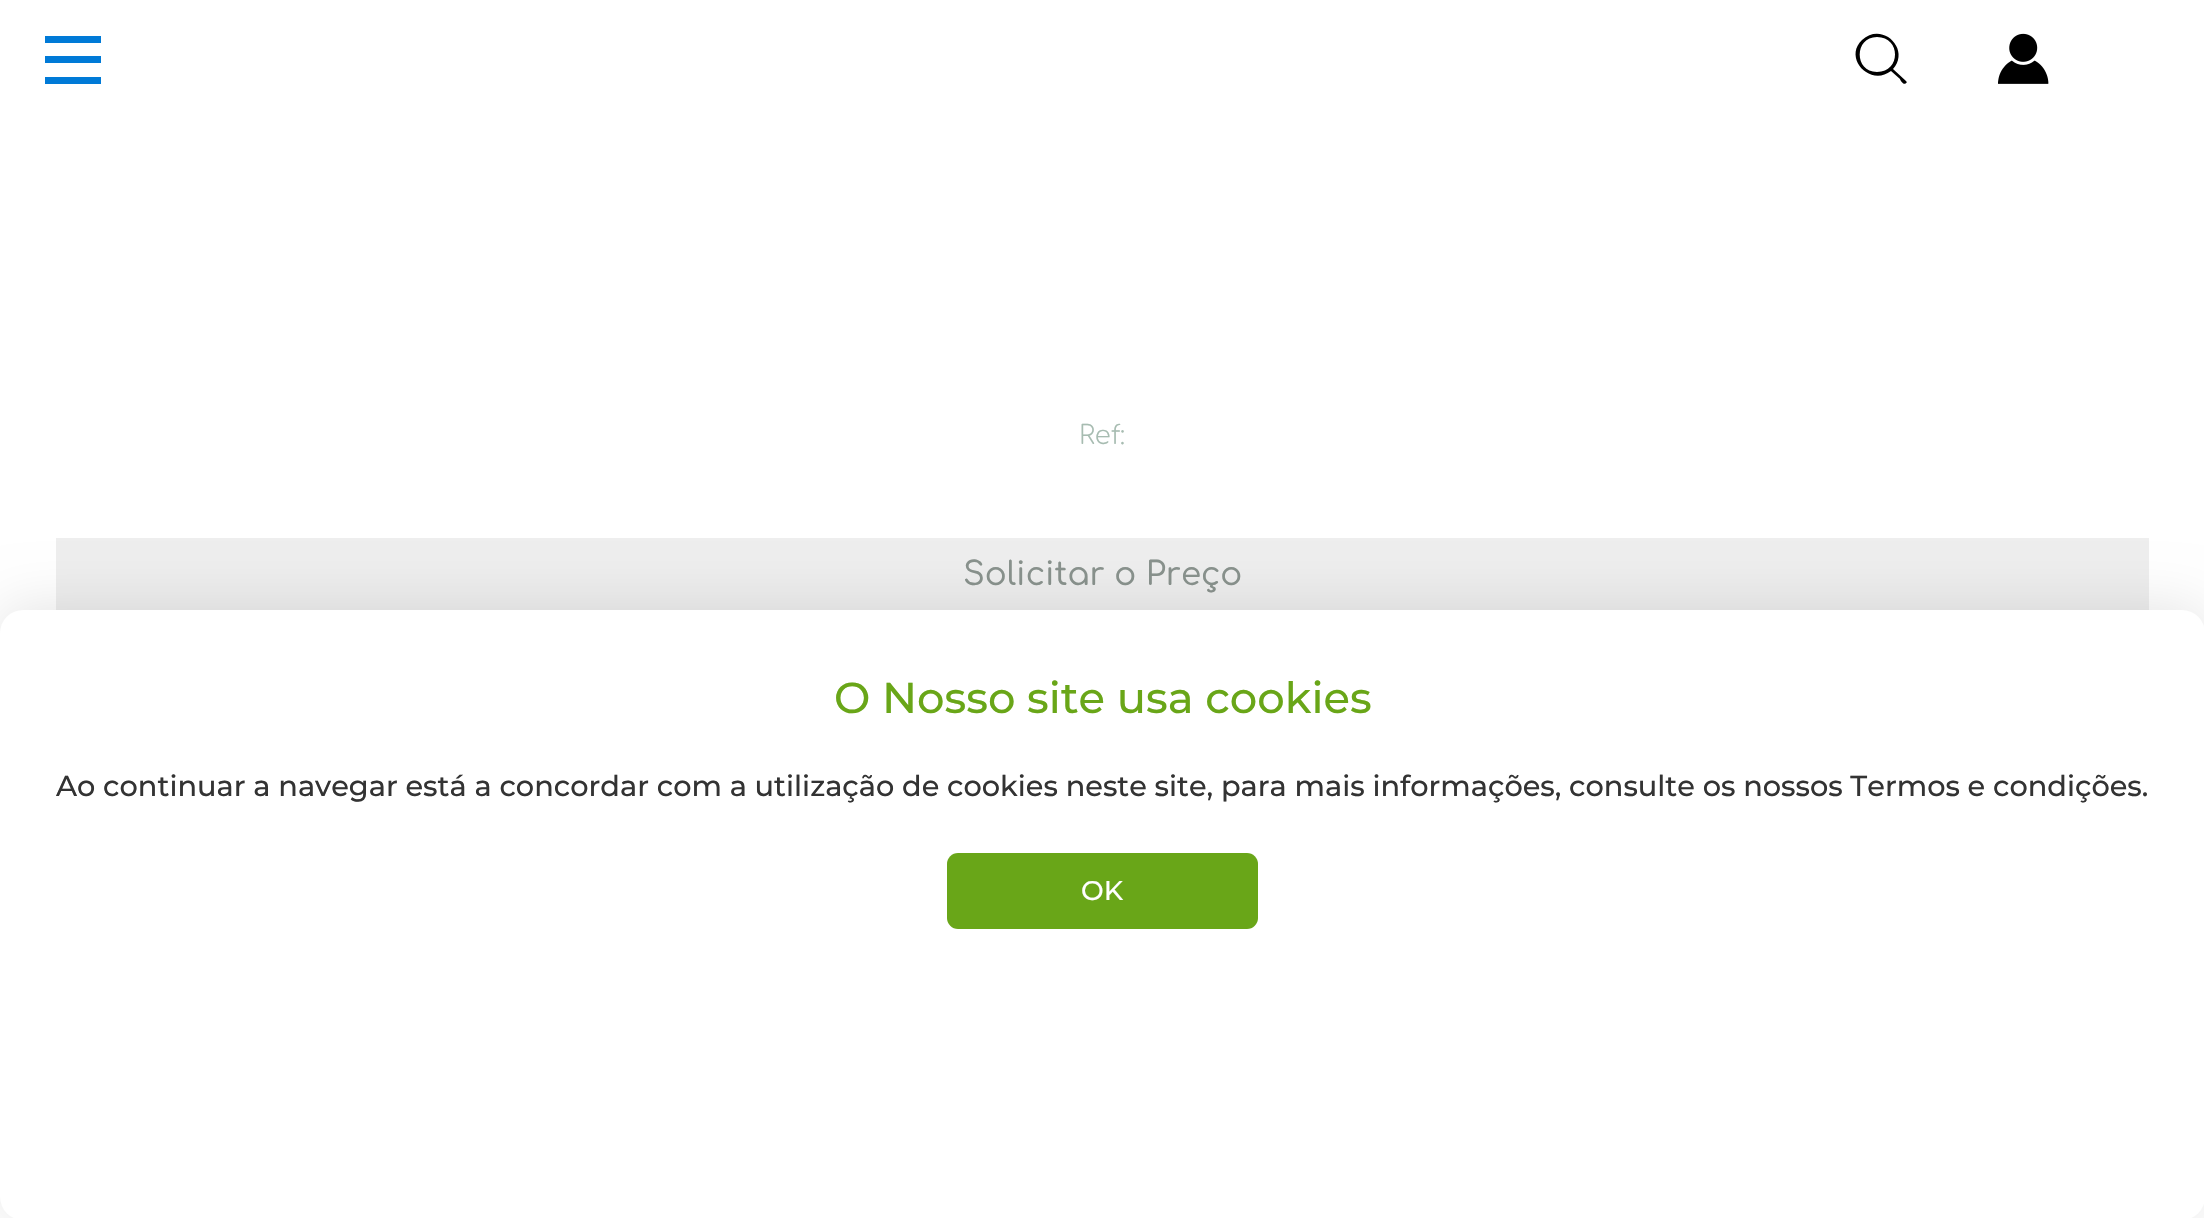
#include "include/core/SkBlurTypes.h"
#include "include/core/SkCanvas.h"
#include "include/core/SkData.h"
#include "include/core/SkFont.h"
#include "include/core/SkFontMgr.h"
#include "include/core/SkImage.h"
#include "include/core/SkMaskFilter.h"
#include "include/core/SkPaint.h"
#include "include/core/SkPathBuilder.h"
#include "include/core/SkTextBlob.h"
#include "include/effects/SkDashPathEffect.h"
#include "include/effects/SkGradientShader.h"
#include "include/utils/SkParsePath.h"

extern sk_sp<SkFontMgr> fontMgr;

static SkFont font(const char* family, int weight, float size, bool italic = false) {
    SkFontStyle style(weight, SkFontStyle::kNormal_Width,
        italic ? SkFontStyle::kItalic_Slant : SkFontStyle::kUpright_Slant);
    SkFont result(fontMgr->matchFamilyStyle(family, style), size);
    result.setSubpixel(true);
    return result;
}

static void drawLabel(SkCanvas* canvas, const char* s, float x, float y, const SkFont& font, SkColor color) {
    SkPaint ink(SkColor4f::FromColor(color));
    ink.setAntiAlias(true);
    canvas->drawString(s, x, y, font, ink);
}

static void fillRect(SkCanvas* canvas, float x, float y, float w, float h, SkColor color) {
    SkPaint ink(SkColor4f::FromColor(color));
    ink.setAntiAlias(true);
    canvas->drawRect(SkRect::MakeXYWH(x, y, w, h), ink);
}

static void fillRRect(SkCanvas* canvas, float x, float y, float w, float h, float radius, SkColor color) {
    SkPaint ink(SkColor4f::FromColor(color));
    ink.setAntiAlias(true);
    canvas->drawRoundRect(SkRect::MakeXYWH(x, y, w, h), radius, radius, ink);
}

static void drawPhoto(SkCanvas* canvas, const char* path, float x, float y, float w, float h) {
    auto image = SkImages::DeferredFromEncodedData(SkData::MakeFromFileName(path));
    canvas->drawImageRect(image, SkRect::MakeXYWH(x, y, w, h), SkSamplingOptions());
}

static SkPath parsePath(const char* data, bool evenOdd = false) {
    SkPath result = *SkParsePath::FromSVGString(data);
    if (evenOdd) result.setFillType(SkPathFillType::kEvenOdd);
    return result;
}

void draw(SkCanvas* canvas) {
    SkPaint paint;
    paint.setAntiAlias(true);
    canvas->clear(0xFFFFFFFF);
    fillRect(canvas, 45, 36, 56, 7, 0xFF007AD7);
    fillRect(canvas, 45, 56, 56, 7, 0xFF007AD7);
    fillRect(canvas, 45, 77, 56, 7, 0xFF007AD7);
    paint.setColor(0xFF000000);
    canvas->drawPath(parsePath("M1906 81L1893 69C1911 49 1882 21 1862 40C1843 58 1870 87 1891 71L1900 79C1900 80 1904 86 1906 83C1907 83 1907 82 1906 81ZM1877 72C1854 72 1854 37 1877 37C1901 37 1901 72 1877 72Z"), paint);
    drawPhoto(canvas, "assets/img1.png", 1998, 33, 51, 51);
    SkFont font1 = font("Comfortaa", 300, 26);
    drawLabel(canvas, "Ref:", 1079, 444, font1, 0xFFA7BCB1);
    fillRect(canvas, 56, 538, 2093, 72, 0xFFEEEEEE);
    SkFont font2 = font("Comfortaa", 500, 32.5f);
    drawLabel(canvas, "Solicitar o Preço", 963, 585, font2, 0xFF89928D);
    paint.setColor(0x1C000000);
    paint.setMaskFilter(SkMaskFilter::MakeBlur(kNormal_SkBlurStyle, 28));
    canvas->drawRoundRect(SkRect::MakeXYWH(0, 608, 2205, 609), 23, 23, paint);
    paint.setMaskFilter(nullptr);
    fillRRect(canvas, 0, 610, 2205, 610, 23, 0xFFFFFFFF);
    SkFont font3 = font("Montserrat", 500, 43.25f);
    drawLabel(canvas, "O Nosso site usa cookies", 834, 713, font3, 0xFF69A618);
    SkFont font4 = font("Montserrat", 500, 28.8f);
    drawLabel(canvas, "Ao continuar a navegar está a concordar com a utilização de cookies neste site, para mais informações, consulte os nossos Termos e condições.", 56, 796, font4, 0xFF333333);
    fillRRect(canvas, 947, 853, 311, 76, 11, 0xFF69A618);
    SkFont font5 = font("Montserrat", 500, 27);
    drawLabel(canvas, "OK", 1081, 900, font5, 0xFFFFFFFF);
}
